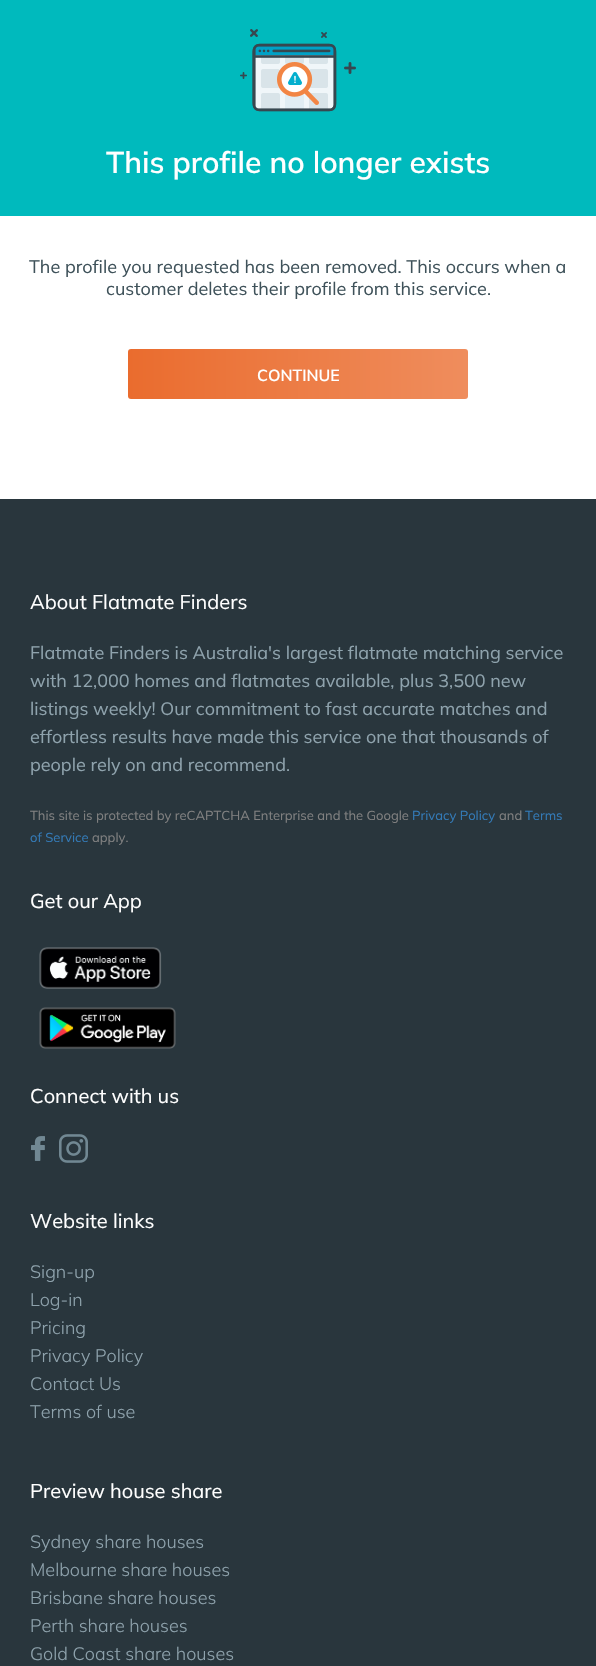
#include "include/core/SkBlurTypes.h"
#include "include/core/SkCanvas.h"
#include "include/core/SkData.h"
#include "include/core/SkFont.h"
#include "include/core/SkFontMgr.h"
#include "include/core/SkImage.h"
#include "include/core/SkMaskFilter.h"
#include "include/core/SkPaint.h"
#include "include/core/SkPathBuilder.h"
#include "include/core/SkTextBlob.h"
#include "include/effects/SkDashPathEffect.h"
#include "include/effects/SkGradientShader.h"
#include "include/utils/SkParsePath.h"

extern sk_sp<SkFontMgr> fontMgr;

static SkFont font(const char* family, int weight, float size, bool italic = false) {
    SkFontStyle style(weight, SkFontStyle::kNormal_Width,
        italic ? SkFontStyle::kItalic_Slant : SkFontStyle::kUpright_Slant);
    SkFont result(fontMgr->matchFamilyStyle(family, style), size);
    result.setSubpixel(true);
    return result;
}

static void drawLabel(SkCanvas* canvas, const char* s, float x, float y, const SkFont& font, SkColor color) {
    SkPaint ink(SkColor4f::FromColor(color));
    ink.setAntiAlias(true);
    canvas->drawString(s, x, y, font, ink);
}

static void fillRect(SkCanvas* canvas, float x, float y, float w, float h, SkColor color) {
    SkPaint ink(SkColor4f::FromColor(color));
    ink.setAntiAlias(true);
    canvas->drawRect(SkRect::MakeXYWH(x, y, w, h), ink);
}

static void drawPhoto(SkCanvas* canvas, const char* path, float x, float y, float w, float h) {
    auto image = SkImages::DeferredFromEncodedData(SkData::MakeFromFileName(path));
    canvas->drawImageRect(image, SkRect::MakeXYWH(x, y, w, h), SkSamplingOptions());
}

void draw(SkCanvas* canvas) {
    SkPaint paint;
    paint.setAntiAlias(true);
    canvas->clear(0xFFFFFFFF);
    fillRect(canvas, 0, 0, 596, 216, 0xFF00BABD);
    drawPhoto(canvas, "assets/img1.png", 240, 29, 116, 83);
    SkFont font1 = font("Mulish", 600, 30);
    drawLabel(canvas, "This profile no longer exists", 106, 173, font1, 0xFFFFFFFF);
    SkFont font2 = font("Mulish", 400, 18);
    drawLabel(canvas, "The profile you requested has been removed. This occurs when a", 29, 273, font2, 0xFF3F525A);
    drawLabel(canvas, "customer deletes their profile from this service.", 106, 295, font2, 0xFF3F525A);
    {
        const SkColor colors[] = {0xFFEA6C2E, 0xFFEF8D5D};
        const float stops[] = {0, 1};
        const SkPoint ends[] = {{128, 374}, {468, 374}};
        paint.setShader(SkGradientShader::MakeLinear(ends, colors, stops, 2, SkTileMode::kClamp));
        paint.setAlpha(255);
    }
    canvas->drawRoundRect(SkRect::MakeXYWH(128, 349, 340, 50), 3, 3, paint);
    SkFont font3 = font("Mulish", 600, 16);
    drawLabel(canvas, "CONTINUE", 257, 381, font3, 0xFFFFFFFF);
    fillRect(canvas, 0, 499, 596, 1167, 0xFF29363D);
    SkFont font4 = font("Mulish", 400, 20);
    drawLabel(canvas, "About Flatmate Finders", 30, 609, font4, 0xFFFFFFFF);
    drawLabel(canvas, "Flatmate Finders is Australia's largest flatmate matching service", 30, 659, font2, 0xFF8FA3AD);
    drawLabel(canvas, "with 12,000 homes and flatmates available, plus 3,500 new", 30, 687, font2, 0xFF8FA3AD);
    drawLabel(canvas, "listings weekly! Our commitment to fast accurate matches and", 30, 715, font2, 0xFF8FA3AD);
    drawLabel(canvas, "effortless results have made this service one that thousands of", 30, 743, font2, 0xFF8FA3AD);
    drawLabel(canvas, "people rely on and recommend.", 30, 771, font2, 0xFF8FA3AD);
    SkFont font5 = font("Mulish", 400, 13);
    drawLabel(canvas, "This site is protected by reCAPTCHA Enterprise and the Google", 30, 820, font5, 0xFF808080);
    drawLabel(canvas, "Privacy Policy", 412, 820, font5, 0xFF337AB7);
    drawLabel(canvas, "and", 499, 820, font5, 0xFF808080);
    drawLabel(canvas, "Terms", 525, 820, font5, 0xFF337AB7);
    drawLabel(canvas, "of Service", 30, 842, font5, 0xFF337AB7);
    drawLabel(canvas, "apply.", 92, 842, font5, 0xFF808080);
    drawLabel(canvas, "Get our App", 30, 908, font4, 0xFFFFFFFF);
    drawPhoto(canvas, "assets/img2.png", 39, 947, 123, 42);
    drawPhoto(canvas, "assets/img3.png", 39, 1007, 137, 42);
    drawLabel(canvas, "Connect with us", 30, 1103, font4, 0xFFFFFFFF);
    drawPhoto(canvas, "assets/img4.png", 31, 1136, 14, 25);
    drawPhoto(canvas, "assets/img5.png", 59, 1134, 29, 29);
    drawLabel(canvas, "Website links", 30, 1228, font4, 0xFFFFFFFF);
    SkFont font6 = font("Mulish", 300, 18);
    drawLabel(canvas, "Sign-up", 30, 1278, font6, 0xFF8FA3AD);
    drawLabel(canvas, "Log-in", 30, 1306, font6, 0xFF8FA3AD);
    drawLabel(canvas, "Pricing", 30, 1334, font6, 0xFF8FA3AD);
    drawLabel(canvas, "Privacy Policy", 30, 1362, font6, 0xFF8FA3AD);
    drawLabel(canvas, "Contact Us", 30, 1390, font6, 0xFF8FA3AD);
    drawLabel(canvas, "Terms of use", 30, 1418, font6, 0xFF8FA3AD);
    drawLabel(canvas, "Preview house share", 30, 1498, font4, 0xFFFFFFFF);
    drawLabel(canvas, "Sydney share houses", 30, 1548, font6, 0xFF8FA3AD);
    drawLabel(canvas, "Melbourne share houses", 30, 1576, font6, 0xFF8FA3AD);
    drawLabel(canvas, "Brisbane share houses", 30, 1604, font6, 0xFF8FA3AD);
    drawLabel(canvas, "Perth share houses", 30, 1632, font6, 0xFF8FA3AD);
    drawLabel(canvas, "Gold Coast share houses", 30, 1660, font6, 0xFF8FA3AD);
}
